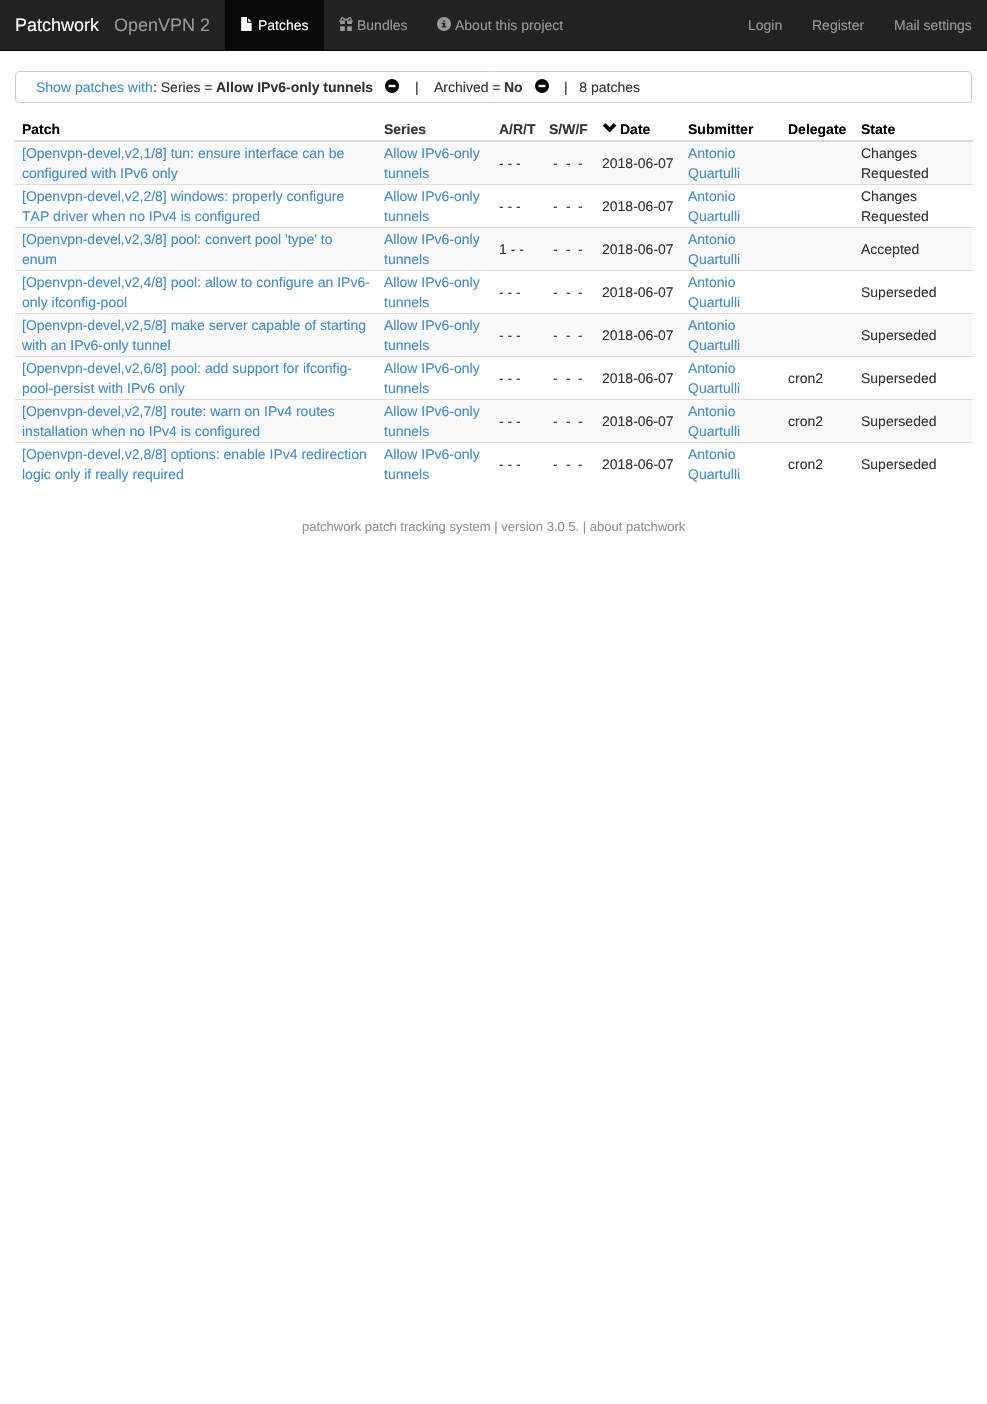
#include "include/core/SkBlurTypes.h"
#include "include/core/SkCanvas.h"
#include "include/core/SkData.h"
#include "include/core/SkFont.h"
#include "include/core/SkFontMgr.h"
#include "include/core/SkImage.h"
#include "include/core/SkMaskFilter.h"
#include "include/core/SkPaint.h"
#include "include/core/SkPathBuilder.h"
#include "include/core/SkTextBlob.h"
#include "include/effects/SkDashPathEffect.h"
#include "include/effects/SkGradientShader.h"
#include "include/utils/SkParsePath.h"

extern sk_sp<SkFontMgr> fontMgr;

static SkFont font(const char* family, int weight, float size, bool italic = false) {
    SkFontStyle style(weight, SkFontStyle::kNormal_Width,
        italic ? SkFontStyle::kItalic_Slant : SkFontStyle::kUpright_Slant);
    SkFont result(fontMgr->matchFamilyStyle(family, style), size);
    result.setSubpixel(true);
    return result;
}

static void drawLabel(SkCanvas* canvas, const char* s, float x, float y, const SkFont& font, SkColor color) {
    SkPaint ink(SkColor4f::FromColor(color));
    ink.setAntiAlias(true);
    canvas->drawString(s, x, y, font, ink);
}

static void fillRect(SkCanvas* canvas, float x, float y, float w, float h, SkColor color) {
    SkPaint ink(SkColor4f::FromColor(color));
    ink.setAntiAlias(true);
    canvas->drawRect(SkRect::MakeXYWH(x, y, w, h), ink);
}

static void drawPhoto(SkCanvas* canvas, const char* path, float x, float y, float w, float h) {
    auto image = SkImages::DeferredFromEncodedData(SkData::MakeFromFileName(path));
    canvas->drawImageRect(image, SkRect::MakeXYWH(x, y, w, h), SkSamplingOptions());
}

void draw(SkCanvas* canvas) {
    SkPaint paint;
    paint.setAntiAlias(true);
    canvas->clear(0xFFFFFFFF);
    fillRect(canvas, 0, 0, 987, 50, 0xFF222222);
    fillRect(canvas, 0, 50, 987, 1, 0xFF080808);
    SkFont font1 = font("Liberation Sans", 400, 18);
    drawLabel(canvas, "Patchwork", 15, 31, font1, 0xFFFFFFFF);
    drawLabel(canvas, "OpenVPN 2", 114, 31, font1, 0xFF999999);
    fillRect(canvas, 225, 0, 99, 50, 0xFF080808);
    drawPhoto(canvas, "assets/img1.png", 241, 17, 11, 14);
    SkFont font2 = font("Liberation Sans", 400, 14);
    drawLabel(canvas, "Patches", 258, 30, font2, 0xFFFFFFFF);
    drawPhoto(canvas, "assets/img2.png", 339, 17, 14, 14);
    drawLabel(canvas, "Bundles", 357, 30, font2, 0xFF999999);
    drawPhoto(canvas, "assets/img3.png", 437, 17, 14, 14);
    drawLabel(canvas, "About this project", 455, 30, font2, 0xFF999999);
    drawLabel(canvas, "Login", 748, 30, font2, 0xFF999999);
    drawLabel(canvas, "Register", 812, 30, font2, 0xFF999999);
    drawLabel(canvas, "Mail settings", 894, 30, font2, 0xFF999999);
    paint.setStroke(true);
    paint.setStrokeWidth(1);
    paint.setColor(0xFFCCCCCC);
    canvas->drawRoundRect(SkRect::MakeXYWH(15.5f, 71.5f, 956, 31), 3.5f, 3.5f, paint);
    drawLabel(canvas, "Show patches with", 36, 92, font2, 0xFF428BCA);
    drawLabel(canvas, ": Series =", 153, 92, font2, 0xFF333333);
    SkFont font3 = font("Liberation Sans", 700, 14);
    drawLabel(canvas, "Allow IPv6-only tunnels", 216, 92, font3, 0xFF333333);
    drawPhoto(canvas, "assets/img4.png", 385, 79, 14, 14);
    drawLabel(canvas, "|", 415, 92, font2, 0xFF333333);
    drawLabel(canvas, "Archived =", 434, 92, font2, 0xFF333333);
    drawLabel(canvas, "No", 504, 92, font3, 0xFF333333);
    drawPhoto(canvas, "assets/img4.png", 535, 79, 14, 14);
    drawLabel(canvas, "|   8 patches", 564, 92, font2, 0xFF333333);
    drawLabel(canvas, "Patch", 22, 134, font3, 0xFF000000);
    drawLabel(canvas, "Series", 384, 134, font3, 0xFF333333);
    drawLabel(canvas, "A/R/T", 499, 134, font3, 0xFF333333);
    drawLabel(canvas, "S/W/F", 549, 134, font3, 0xFF333333);
    drawPhoto(canvas, "assets/img5.png", 602, 123, 15, 10);
    drawLabel(canvas, "Date", 620, 134, font3, 0xFF000000);
    drawLabel(canvas, "Submitter", 688, 134, font3, 0xFF000000);
    drawLabel(canvas, "Delegate", 788, 134, font3, 0xFF000000);
    fillRect(canvas, 14, 140, 959, 2, 0xFFDDDDDD);
    drawLabel(canvas, "State", 861, 134, font3, 0xFF000000);
    fillRect(canvas, 15, 142, 957, 42, 0xFFF9F9F9);
    drawLabel(canvas, "[Openvpn-devel,v2,1/8] tun: ensure interface can be", 22, 158, font2, 0xFF428BCA);
    drawLabel(canvas, "configured with IPv6 only", 22, 178, font2, 0xFF428BCA);
    drawLabel(canvas, "Allow IPv6-only", 384, 158, font2, 0xFF428BCA);
    drawLabel(canvas, "tunnels", 384, 178, font2, 0xFF428BCA);
    drawLabel(canvas, "- - -", 499, 168, font2, 0xFF333333);
    drawLabel(canvas, "-", 553, 168, font2, 0xFF333333);
    drawLabel(canvas, "-", 566, 168, font2, 0xFF333333);
    drawLabel(canvas, "-", 578, 168, font2, 0xFF333333);
    drawLabel(canvas, "2018-06-07", 602, 168, font2, 0xFF333333);
    drawLabel(canvas, "Antonio", 688, 158, font2, 0xFF428BCA);
    drawLabel(canvas, "Quartulli", 688, 178, font2, 0xFF428BCA);
    drawLabel(canvas, "Changes", 861, 158, font2, 0xFF333333);
    drawLabel(canvas, "Requested", 861, 178, font2, 0xFF333333);
    drawLabel(canvas, "[Openvpn-devel,v2,2/8] windows: properly configure", 22, 201, font2, 0xFF428BCA);
    drawLabel(canvas, "TAP driver when no IPv4 is configured", 22, 221, font2, 0xFF428BCA);
    drawLabel(canvas, "Allow IPv6-only", 384, 201, font2, 0xFF428BCA);
    drawLabel(canvas, "tunnels", 384, 221, font2, 0xFF428BCA);
    drawLabel(canvas, "- - -", 499, 211, font2, 0xFF333333);
    drawLabel(canvas, "-", 553, 211, font2, 0xFF333333);
    drawLabel(canvas, "-", 566, 211, font2, 0xFF333333);
    drawLabel(canvas, "-", 578, 211, font2, 0xFF333333);
    drawLabel(canvas, "2018-06-07", 602, 211, font2, 0xFF333333);
    drawLabel(canvas, "Antonio", 688, 201, font2, 0xFF428BCA);
    drawLabel(canvas, "Quartulli", 688, 221, font2, 0xFF428BCA);
    fillRect(canvas, 15, 184, 958, 1, 0xFFDDDDDD);
    drawLabel(canvas, "Changes", 861, 201, font2, 0xFF333333);
    drawLabel(canvas, "Requested", 861, 221, font2, 0xFF333333);
    fillRect(canvas, 15, 228, 957, 42, 0xFFF9F9F9);
    drawLabel(canvas, "[Openvpn-devel,v2,3/8] pool: convert pool 'type' to", 22, 244, font2, 0xFF428BCA);
    drawLabel(canvas, "enum", 22, 264, font2, 0xFF428BCA);
    drawLabel(canvas, "Allow IPv6-only", 384, 244, font2, 0xFF428BCA);
    drawLabel(canvas, "tunnels", 384, 264, font2, 0xFF428BCA);
    drawLabel(canvas, "1 - -", 499, 254, font2, 0xFF333333);
    drawLabel(canvas, "-", 553, 254, font2, 0xFF333333);
    drawLabel(canvas, "-", 566, 254, font2, 0xFF333333);
    drawLabel(canvas, "-", 578, 254, font2, 0xFF333333);
    drawLabel(canvas, "2018-06-07", 602, 254, font2, 0xFF333333);
    drawLabel(canvas, "Antonio", 688, 244, font2, 0xFF428BCA);
    drawLabel(canvas, "Quartulli", 688, 264, font2, 0xFF428BCA);
    fillRect(canvas, 15, 227, 958, 1, 0xFFDDDDDD);
    drawLabel(canvas, "Accepted", 861, 254, font2, 0xFF333333);
    drawLabel(canvas, "[Openvpn-devel,v2,4/8] pool: allow to configure an IPv6-", 22, 287, font2, 0xFF428BCA);
    drawLabel(canvas, "only ifconfig-pool", 22, 307, font2, 0xFF428BCA);
    drawLabel(canvas, "Allow IPv6-only", 384, 287, font2, 0xFF428BCA);
    drawLabel(canvas, "tunnels", 384, 307, font2, 0xFF428BCA);
    drawLabel(canvas, "- - -", 499, 297, font2, 0xFF333333);
    drawLabel(canvas, "-", 553, 297, font2, 0xFF333333);
    drawLabel(canvas, "-", 566, 297, font2, 0xFF333333);
    drawLabel(canvas, "-", 578, 297, font2, 0xFF333333);
    drawLabel(canvas, "2018-06-07", 602, 297, font2, 0xFF333333);
    drawLabel(canvas, "Antonio", 688, 287, font2, 0xFF428BCA);
    drawLabel(canvas, "Quartulli", 688, 307, font2, 0xFF428BCA);
    fillRect(canvas, 15, 270, 958, 1, 0xFFDDDDDD);
    drawLabel(canvas, "Superseded", 861, 297, font2, 0xFF333333);
    fillRect(canvas, 15, 314, 957, 42, 0xFFF9F9F9);
    drawLabel(canvas, "[Openvpn-devel,v2,5/8] make server capable of starting", 22, 330, font2, 0xFF428BCA);
    drawLabel(canvas, "with an IPv6-only tunnel", 22, 350, font2, 0xFF428BCA);
    drawLabel(canvas, "Allow IPv6-only", 384, 330, font2, 0xFF428BCA);
    drawLabel(canvas, "tunnels", 384, 350, font2, 0xFF428BCA);
    drawLabel(canvas, "- - -", 499, 340, font2, 0xFF333333);
    drawLabel(canvas, "-", 553, 340, font2, 0xFF333333);
    drawLabel(canvas, "-", 566, 340, font2, 0xFF333333);
    drawLabel(canvas, "-", 578, 340, font2, 0xFF333333);
    drawLabel(canvas, "2018-06-07", 602, 340, font2, 0xFF333333);
    drawLabel(canvas, "Antonio", 688, 330, font2, 0xFF428BCA);
    drawLabel(canvas, "Quartulli", 688, 350, font2, 0xFF428BCA);
    fillRect(canvas, 15, 313, 958, 1, 0xFFDDDDDD);
    drawLabel(canvas, "Superseded", 861, 340, font2, 0xFF333333);
    drawLabel(canvas, "[Openvpn-devel,v2,6/8] pool: add support for ifconfig-", 22, 373, font2, 0xFF428BCA);
    drawLabel(canvas, "pool-persist with IPv6 only", 22, 393, font2, 0xFF428BCA);
    drawLabel(canvas, "Allow IPv6-only", 384, 373, font2, 0xFF428BCA);
    drawLabel(canvas, "tunnels", 384, 393, font2, 0xFF428BCA);
    drawLabel(canvas, "- - -", 499, 383, font2, 0xFF333333);
    drawLabel(canvas, "-", 553, 383, font2, 0xFF333333);
    drawLabel(canvas, "-", 566, 383, font2, 0xFF333333);
    drawLabel(canvas, "-", 578, 383, font2, 0xFF333333);
    drawLabel(canvas, "2018-06-07", 602, 383, font2, 0xFF333333);
    drawLabel(canvas, "Antonio", 688, 373, font2, 0xFF428BCA);
    drawLabel(canvas, "Quartulli", 688, 393, font2, 0xFF428BCA);
    drawLabel(canvas, "cron2", 788, 383, font2, 0xFF333333);
    fillRect(canvas, 15, 356, 958, 1, 0xFFDDDDDD);
    drawLabel(canvas, "Superseded", 861, 383, font2, 0xFF333333);
    fillRect(canvas, 15, 400, 957, 42, 0xFFF9F9F9);
    drawLabel(canvas, "[Openvpn-devel,v2,7/8] route: warn on IPv4 routes", 22, 416, font2, 0xFF428BCA);
    drawLabel(canvas, "installation when no IPv4 is configured", 22, 436, font2, 0xFF428BCA);
    drawLabel(canvas, "Allow IPv6-only", 384, 416, font2, 0xFF428BCA);
    drawLabel(canvas, "tunnels", 384, 436, font2, 0xFF428BCA);
    drawLabel(canvas, "- - -", 499, 426, font2, 0xFF333333);
    drawLabel(canvas, "-", 553, 426, font2, 0xFF333333);
    drawLabel(canvas, "-", 566, 426, font2, 0xFF333333);
    drawLabel(canvas, "-", 578, 426, font2, 0xFF333333);
    drawLabel(canvas, "2018-06-07", 602, 426, font2, 0xFF333333);
    drawLabel(canvas, "Antonio", 688, 416, font2, 0xFF428BCA);
    drawLabel(canvas, "Quartulli", 688, 436, font2, 0xFF428BCA);
    drawLabel(canvas, "cron2", 788, 426, font2, 0xFF333333);
    fillRect(canvas, 15, 399, 958, 1, 0xFFDDDDDD);
    drawLabel(canvas, "Superseded", 861, 426, font2, 0xFF333333);
    drawLabel(canvas, "[Openvpn-devel,v2,8/8] options: enable IPv4 redirection", 22, 459, font2, 0xFF428BCA);
    drawLabel(canvas, "logic only if really required", 22, 479, font2, 0xFF428BCA);
    drawLabel(canvas, "Allow IPv6-only", 384, 459, font2, 0xFF428BCA);
    drawLabel(canvas, "tunnels", 384, 479, font2, 0xFF428BCA);
    drawLabel(canvas, "- - -", 499, 469, font2, 0xFF333333);
    drawLabel(canvas, "-", 553, 469, font2, 0xFF333333);
    drawLabel(canvas, "-", 566, 469, font2, 0xFF333333);
    drawLabel(canvas, "-", 578, 469, font2, 0xFF333333);
    drawLabel(canvas, "2018-06-07", 602, 469, font2, 0xFF333333);
    drawLabel(canvas, "Antonio", 688, 459, font2, 0xFF428BCA);
    drawLabel(canvas, "Quartulli", 688, 479, font2, 0xFF428BCA);
    drawLabel(canvas, "cron2", 788, 469, font2, 0xFF333333);
    fillRect(canvas, 15, 442, 958, 1, 0xFFDDDDDD);
    drawLabel(canvas, "Superseded", 861, 469, font2, 0xFF333333);
    SkFont font4 = font("Liberation Sans", 400, 13);
    drawLabel(canvas, "patchwork patch tracking system | version 3.0.5. | about patchwork", 302, 531, font4, 0xFF909090);
}
